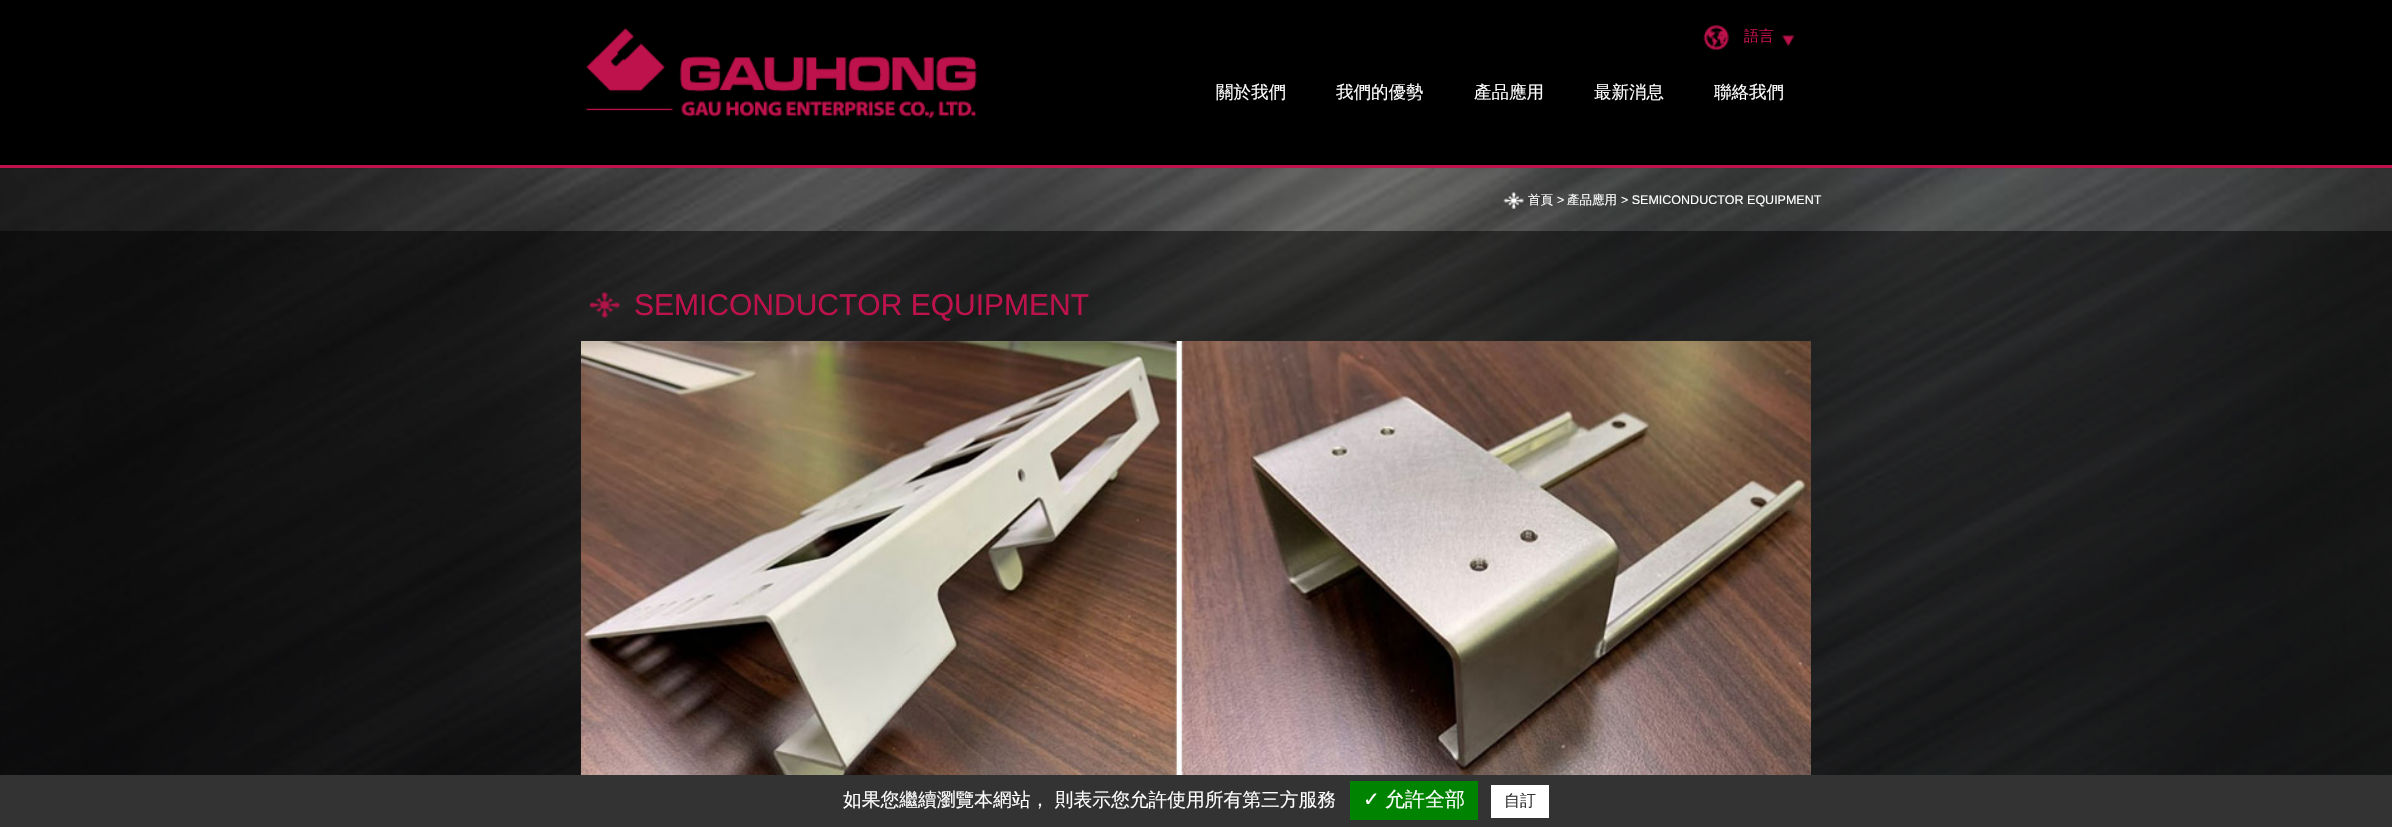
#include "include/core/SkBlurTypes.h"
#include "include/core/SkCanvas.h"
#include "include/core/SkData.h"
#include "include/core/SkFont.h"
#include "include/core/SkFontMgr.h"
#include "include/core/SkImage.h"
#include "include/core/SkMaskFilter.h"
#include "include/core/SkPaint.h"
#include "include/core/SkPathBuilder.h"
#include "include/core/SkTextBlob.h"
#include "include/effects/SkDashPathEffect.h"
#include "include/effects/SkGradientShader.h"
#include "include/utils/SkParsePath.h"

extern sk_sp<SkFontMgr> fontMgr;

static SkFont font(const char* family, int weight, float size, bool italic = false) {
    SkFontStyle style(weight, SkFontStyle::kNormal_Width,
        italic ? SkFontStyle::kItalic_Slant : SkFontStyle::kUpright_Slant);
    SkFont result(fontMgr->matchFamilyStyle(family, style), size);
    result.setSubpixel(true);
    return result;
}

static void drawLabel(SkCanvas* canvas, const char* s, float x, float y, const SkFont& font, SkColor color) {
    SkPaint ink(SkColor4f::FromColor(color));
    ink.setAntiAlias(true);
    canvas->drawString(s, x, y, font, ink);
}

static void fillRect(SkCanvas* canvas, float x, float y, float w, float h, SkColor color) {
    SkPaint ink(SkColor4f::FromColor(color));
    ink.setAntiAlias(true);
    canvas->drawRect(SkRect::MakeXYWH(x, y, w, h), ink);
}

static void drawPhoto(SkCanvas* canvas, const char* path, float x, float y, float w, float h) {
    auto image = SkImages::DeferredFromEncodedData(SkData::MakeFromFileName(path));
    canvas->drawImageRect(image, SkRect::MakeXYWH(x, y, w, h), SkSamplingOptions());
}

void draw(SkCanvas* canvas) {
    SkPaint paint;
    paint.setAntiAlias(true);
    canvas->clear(0xFF000000);
    fillRect(canvas, 0, 165, 2392, 3, 0xFFBE124C);
    drawPhoto(canvas, "assets/img1.png", 586, 28, 391, 91);
    drawPhoto(canvas, "assets/img2.png", 1782, 35, 13, 12);
    drawPhoto(canvas, "assets/img3.png", 1703, 25, 26, 25);
    SkFont font1 = font("WenQuanYi Zen Hei", 500, 15);
    drawLabel(canvas, "語言", 1744, 41, font1, 0xFFBE124C);
    SkFont font2 = font("WenQuanYi Zen Hei", 500, 17.5f);
    drawLabel(canvas, "關於我們", 1216, 98, font2, 0xFFFFFFFF);
    drawLabel(canvas, "我們的優勢", 1336, 98, font2, 0xFFFFFFFF);
    drawLabel(canvas, "產品應用", 1474, 98, font2, 0xFFFFFFFF);
    drawLabel(canvas, "最新消息", 1594, 98, font2, 0xFFFFFFFF);
    drawLabel(canvas, "聯絡我們", 1714, 98, font2, 0xFFFFFFFF);
    drawPhoto(canvas, "assets/img4.png", 0, 168, 2392, 607);
    drawPhoto(canvas, "assets/img5.png", 1503, 192, 21, 17);
    SkFont font3 = font("WenQuanYi Zen Hei", 500, 12.5f);
    drawLabel(canvas, "首頁", 1528, 204, font3, 0xFFFFFFFF);
    SkFont font4 = font("Liberation Sans", 400, 12.5f);
    drawLabel(canvas, ">", 1557, 204, font4, 0xFFFFFFFF);
    drawLabel(canvas, "產品應用", 1567, 204, font3, 0xFFFFFFFF);
    drawLabel(canvas, "> SEMICONDUCTOR EQUIPMENT", 1621, 204, font4, 0xFFFFFFFF);
    drawPhoto(canvas, "assets/img6.png", 590, 292, 30, 26);
    SkFont font5 = font("Liberation Sans", 400, 30);
    drawLabel(canvas, "SEMICONDUCTOR EQUIPMENT", 634, 315, font5, 0xFFBE124C);
    drawPhoto(canvas, "assets/img7.png", 581, 341, 1230, 434);
    fillRect(canvas, 0, 775, 2392, 52, 0xFF333333);
    SkFont font6 = font("WenQuanYi Zen Hei", 500, 18.75f);
    drawLabel(canvas, "如果您繼續瀏覽本網站， 則表示您允許使用所有第三方服務", 843, 806, font6, 0xFFFFFFFF);
    fillRect(canvas, 1350, 781, 128, 39, 0xFF008300);
    SkFont font7 = font("DejaVu Sans", 400, 20);
    drawLabel(canvas, "✓", 1363, 806, font7, 0xFFFFFFFF);
    SkFont font8 = font("WenQuanYi Zen Hei", 500, 20);
    drawLabel(canvas, "允許全部", 1385, 806, font8, 0xFFFFFFFF);
    fillRect(canvas, 1491, 785, 58, 33, 0xFFFFFFFF);
    SkFont font9 = font("WenQuanYi Zen Hei", 500, 16);
    drawLabel(canvas, "自訂", 1504, 806, font9, 0xFF333333);
}
